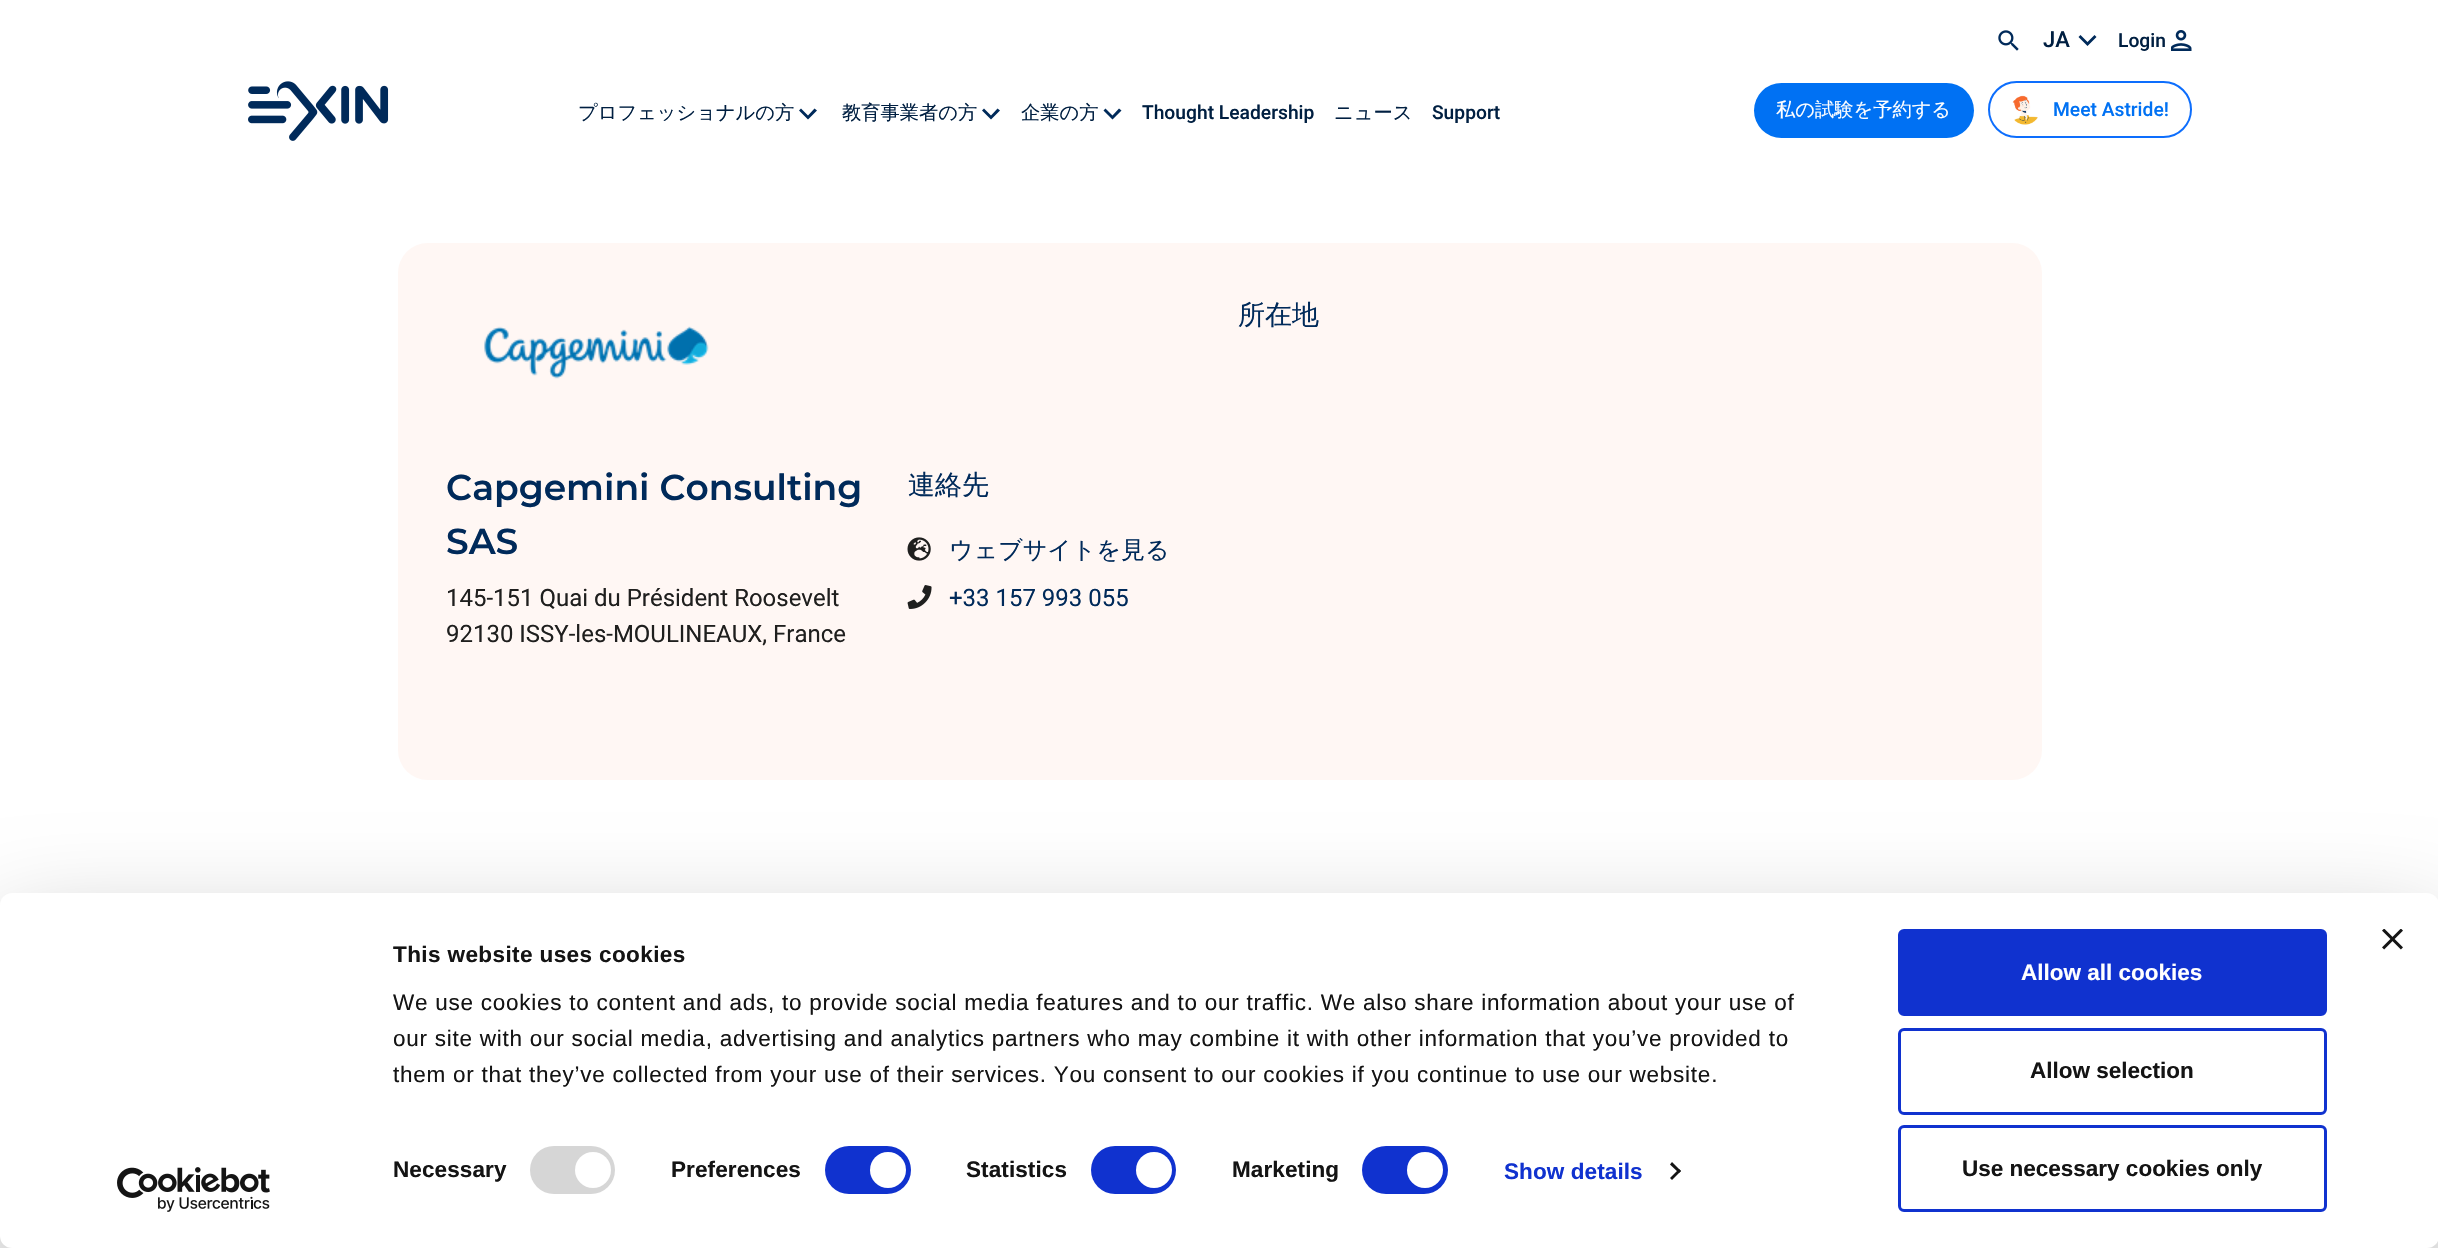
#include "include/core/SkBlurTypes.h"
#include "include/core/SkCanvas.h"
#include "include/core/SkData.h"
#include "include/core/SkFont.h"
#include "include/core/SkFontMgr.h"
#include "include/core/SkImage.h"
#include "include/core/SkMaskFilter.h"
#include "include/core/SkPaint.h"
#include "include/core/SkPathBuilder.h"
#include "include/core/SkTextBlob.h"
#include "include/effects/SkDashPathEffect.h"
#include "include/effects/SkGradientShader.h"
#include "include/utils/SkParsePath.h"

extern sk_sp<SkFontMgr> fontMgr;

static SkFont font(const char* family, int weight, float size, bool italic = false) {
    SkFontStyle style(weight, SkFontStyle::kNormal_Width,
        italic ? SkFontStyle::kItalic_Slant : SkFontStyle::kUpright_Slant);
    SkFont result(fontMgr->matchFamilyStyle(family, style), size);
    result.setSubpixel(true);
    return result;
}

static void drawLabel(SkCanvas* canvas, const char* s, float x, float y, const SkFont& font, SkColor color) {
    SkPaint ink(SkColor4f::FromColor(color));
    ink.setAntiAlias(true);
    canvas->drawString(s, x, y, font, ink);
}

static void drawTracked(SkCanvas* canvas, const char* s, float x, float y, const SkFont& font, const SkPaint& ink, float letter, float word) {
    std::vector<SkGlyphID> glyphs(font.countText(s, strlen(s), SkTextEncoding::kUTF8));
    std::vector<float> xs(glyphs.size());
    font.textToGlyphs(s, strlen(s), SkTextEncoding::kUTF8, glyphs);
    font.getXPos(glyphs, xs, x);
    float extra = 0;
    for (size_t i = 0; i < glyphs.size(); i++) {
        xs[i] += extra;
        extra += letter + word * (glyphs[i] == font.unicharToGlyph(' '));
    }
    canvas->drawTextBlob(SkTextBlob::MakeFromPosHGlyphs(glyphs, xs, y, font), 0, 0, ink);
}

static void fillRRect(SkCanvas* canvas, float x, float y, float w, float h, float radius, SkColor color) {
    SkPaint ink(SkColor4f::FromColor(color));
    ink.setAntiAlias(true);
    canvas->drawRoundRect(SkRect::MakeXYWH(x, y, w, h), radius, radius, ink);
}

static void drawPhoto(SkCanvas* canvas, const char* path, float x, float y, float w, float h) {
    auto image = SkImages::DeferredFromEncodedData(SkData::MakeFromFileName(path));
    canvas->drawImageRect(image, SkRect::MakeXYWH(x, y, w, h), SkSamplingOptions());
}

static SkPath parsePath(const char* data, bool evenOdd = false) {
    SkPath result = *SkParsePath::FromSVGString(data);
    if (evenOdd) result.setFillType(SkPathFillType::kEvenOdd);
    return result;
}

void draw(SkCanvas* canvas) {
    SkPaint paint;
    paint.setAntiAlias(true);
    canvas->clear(0xFFFFFFFF);
    drawPhoto(canvas, "assets/img1.png", 1998, 30, 21, 21);
    SkFont font1 = font("Roboto", 500, 22);
    drawLabel(canvas, "JA", 2043, 47, font1, 0xFF001F41);
    paint.setColor(0xFF002A5A);
    canvas->drawPath(parsePath("M2096.5 37L2094.5 35L2087.5 42L2080.5 35L2078.5 37L2087.5 46Z"), paint);
    SkFont font2 = font("Roboto", 500, 19.25f);
    drawLabel(canvas, "Login", 2118, 47, font2, 0xFF001F41);
    drawPhoto(canvas, "assets/img2.png", 2171, 30, 21, 21);
    drawPhoto(canvas, "assets/img3.png", 248, 81, 141, 60);
    SkFont font3 = font("WenQuanYi Zen Hei", 500, 19.25f);
    drawLabel(canvas, "プロフェッショナルの方", 578, 119, font3, 0xFF001F41);
    canvas->drawPath(parsePath("M814.5 108.5L808 115.5L801 108.5L799 110.5L808 119.5L817 110.5Z"), paint);
    drawLabel(canvas, "教育事業者の方", 842, 119, font3, 0xFF001F41);
    canvas->drawPath(parsePath("M997.5 108.5L991 115.5L984 108.5L982 110.5L991 119.5L1000 110.5Z"), paint);
    drawLabel(canvas, "企業の方", 1021, 119, font3, 0xFF001F41);
    canvas->drawPath(parsePath("M1119 108.5L1112.5 115.5L1105.5 108.5L1103.5 110.5L1112.5 119.5L1121.5 110.5Z"), paint);
    drawLabel(canvas, "Thought Leadership", 1142, 119, font2, 0xFF001F41);
    drawLabel(canvas, "ニュース", 1334, 119, font3, 0xFF001F41);
    drawLabel(canvas, "Support", 1432, 119, font2, 0xFF001F41);
    fillRRect(canvas, 1754, 83, 220, 55, 27.5f, 0xFF0071F3);
    drawLabel(canvas, "私の試験を予約する", 1776, 116, font3, 0xFFFFFFFF);
    paint.setStroke(true);
    paint.setStrokeWidth(2);
    paint.setColor(0xFF0D6EFD);
    canvas->drawRoundRect(SkRect::MakeXYWH(1989, 82, 202, 55), 27.5f, 27.5f, paint);
    drawPhoto(canvas, "assets/img4.png", 2012, 95, 26, 30);
    drawLabel(canvas, "Meet Astride!", 2053, 116, font2, 0xFF0071F3);
    fillRRect(canvas, 398, 243, 1644, 537, 30, 0xFFFFF7F4);
    SkFont font4 = font("WenQuanYi Zen Hei", 500, 27);
    drawLabel(canvas, "所在地", 1238, 324, font4, 0xFF002A5A);
    drawPhoto(canvas, "assets/img5.png", 484, 326, 225, 53);
    SkFont font5 = font("Montserrat", 600, 36);
    drawLabel(canvas, "Capgemini Consulting", 446, 500, font5, 0xFF002A5A);
    drawLabel(canvas, "SAS", 446, 554, font5, 0xFF002A5A);
    SkFont font6 = font("Roboto", 400, 24);
    drawLabel(canvas, "145-151 Quai du Président Roosevelt", 446, 606, font6, 0xFF1F1F1E);
    drawLabel(canvas, "92130 ISSY-les-MOULINEAUX, France", 446, 642, font6, 0xFF1F1F1E);
    drawLabel(canvas, "連絡先", 908, 494, font4, 0xFF002A5A);
    drawPhoto(canvas, "assets/img6.png", 907, 537, 24, 24);
    SkFont font7 = font("WenQuanYi Zen Hei", 500, 24);
    drawLabel(canvas, "ウェブサイトを見る", 949, 558, font7, 0xFF002A5A);
    drawPhoto(canvas, "assets/img7.png", 907, 585, 25, 24);
    drawLabel(canvas, "+33 157 993 055", 949, 606, font6, 0xFF002A5A);
    paint.setStroke(false);
    paint.setColor(0x4D000000);
    paint.setMaskFilter(SkMaskFilter::MakeBlur(kNormal_SkBlurStyle, 52.5f));
    canvas->drawRoundRect(SkRect::MakeXYWH(0, 938, 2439, 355), 12, 12, paint);
    paint.setMaskFilter(nullptr);
    fillRRect(canvas, 0, 893, 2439, 355, 12, 0xFFFFFFFF);
    drawPhoto(canvas, "assets/img8.png", 2382, 929, 21, 21);
    SkFont font8 = font("Liberation Sans", 700, 22.5f);
    paint.setColor(0xFF141414);
    drawTracked(canvas, "This website uses cookies", 393, 962, font8, paint, 0.4f, 0);
    SkFont font9 = font("Liberation Sans", 400, 22.5f);
    drawTracked(canvas, "We use cookies to content and ads, to provide social media features and to our traffic. We also share information about your use of", 393, 1010, font9, paint, 0.75f, 0);
    drawTracked(canvas, "our site with our social media, advertising and analytics partners who may combine it with other information that you’ve provided to", 393, 1046, font9, paint, 0.75f, 0);
    drawTracked(canvas, "them or that they’ve collected from your use of their services. You consent to our cookies if you continue to use our website.", 393, 1082, font9, paint, 0.75f, 0);
    drawTracked(canvas, "Necessary", 393, 1177, font8, paint, 0.1f, 0);
    fillRRect(canvas, 530, 1146, 85, 48, 24, 0xFFD6D6D6);
    paint.setColor(0xFFFFFFFF);
    canvas->drawCircle(593, 1170, 18, paint);
    paint.setColor(0xFF141414);
    drawTracked(canvas, "Preferences", 671, 1177, font8, paint, 0.1f, 0);
    fillRRect(canvas, 825, 1146, 86, 48, 24, 0xFF1032CF);
    paint.setColor(0xFFFFFFFF);
    canvas->drawCircle(888, 1170, 18, paint);
    paint.setColor(0xFF141414);
    drawTracked(canvas, "Statistics", 966, 1177, font8, paint, 0.1f, 0);
    fillRRect(canvas, 1091, 1146, 85, 48, 24, 0xFF1032CF);
    paint.setColor(0xFFFFFFFF);
    canvas->drawCircle(1154, 1170, 18, paint);
    paint.setColor(0xFF141414);
    drawTracked(canvas, "Marketing", 1232, 1177, font8, paint, 0.1f, 0);
    fillRRect(canvas, 1362, 1146, 86, 48, 24, 0xFF1032CF);
    paint.setColor(0xFFFFFFFF);
    canvas->drawCircle(1425, 1170, 18, paint);
    paint.setColor(0xFF1032CF);
    drawTracked(canvas, "Show details", 1504, 1179, font8, paint, 0.1f, 0);
    paint.setColor(0xFF141414);
    canvas->drawPath(parsePath("M1672 1162L1681 1171L1679 1173L1670 1164.5Z"), paint);
    canvas->drawPath(parsePath("M1679 1169L1681 1171L1672 1180L1670 1178Z"), paint);
    paint.setColor(0xFF1032CF);
    canvas->drawRoundRect(SkRect::MakeXYWH(1899.5f, 930.5f, 426, 84), 4.5f, 4.5f, paint);
    paint.setStroke(true);
    paint.setStrokeWidth(3);
    canvas->drawRoundRect(SkRect::MakeXYWH(1899.5f, 930.5f, 426, 84), 4.5f, 4.5f, paint);
    drawLabel(canvas, "Allow all cookies", 2021, 980, font8, 0xFFFFFFFF);
    canvas->drawRoundRect(SkRect::MakeXYWH(1899.5f, 1029.5f, 426, 84), 4.5f, 4.5f, paint);
    drawLabel(canvas, "Allow selection", 2030, 1078, font8, 0xFF141414);
    canvas->drawRoundRect(SkRect::MakeXYWH(1899.5f, 1126.5f, 426, 84), 4.5f, 4.5f, paint);
    drawLabel(canvas, "Use necessary cookies only", 1962, 1176, font8, 0xFF141414);
    drawPhoto(canvas, "assets/img9.png", 117, 1167, 153, 45);
}
